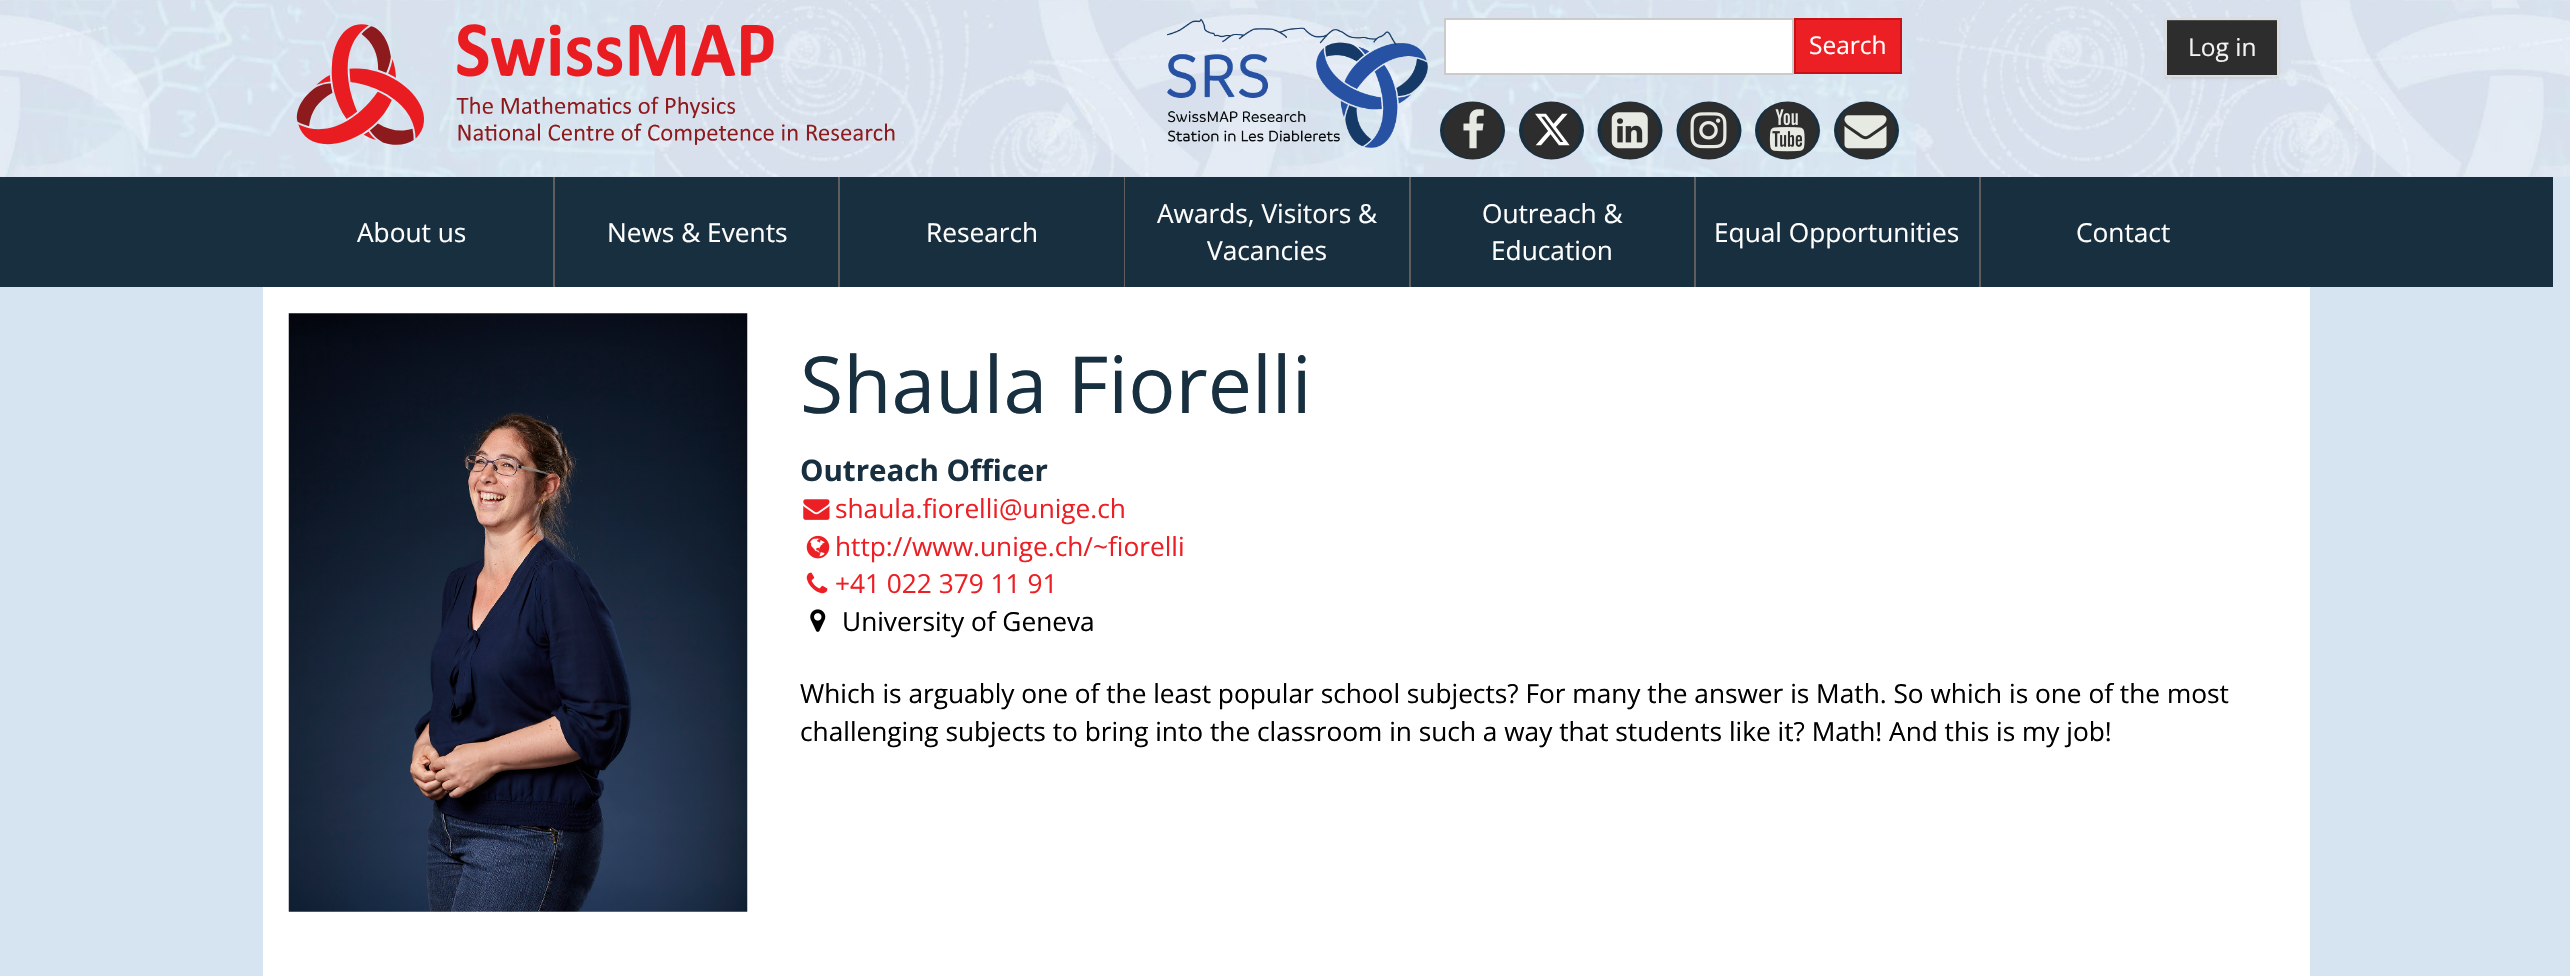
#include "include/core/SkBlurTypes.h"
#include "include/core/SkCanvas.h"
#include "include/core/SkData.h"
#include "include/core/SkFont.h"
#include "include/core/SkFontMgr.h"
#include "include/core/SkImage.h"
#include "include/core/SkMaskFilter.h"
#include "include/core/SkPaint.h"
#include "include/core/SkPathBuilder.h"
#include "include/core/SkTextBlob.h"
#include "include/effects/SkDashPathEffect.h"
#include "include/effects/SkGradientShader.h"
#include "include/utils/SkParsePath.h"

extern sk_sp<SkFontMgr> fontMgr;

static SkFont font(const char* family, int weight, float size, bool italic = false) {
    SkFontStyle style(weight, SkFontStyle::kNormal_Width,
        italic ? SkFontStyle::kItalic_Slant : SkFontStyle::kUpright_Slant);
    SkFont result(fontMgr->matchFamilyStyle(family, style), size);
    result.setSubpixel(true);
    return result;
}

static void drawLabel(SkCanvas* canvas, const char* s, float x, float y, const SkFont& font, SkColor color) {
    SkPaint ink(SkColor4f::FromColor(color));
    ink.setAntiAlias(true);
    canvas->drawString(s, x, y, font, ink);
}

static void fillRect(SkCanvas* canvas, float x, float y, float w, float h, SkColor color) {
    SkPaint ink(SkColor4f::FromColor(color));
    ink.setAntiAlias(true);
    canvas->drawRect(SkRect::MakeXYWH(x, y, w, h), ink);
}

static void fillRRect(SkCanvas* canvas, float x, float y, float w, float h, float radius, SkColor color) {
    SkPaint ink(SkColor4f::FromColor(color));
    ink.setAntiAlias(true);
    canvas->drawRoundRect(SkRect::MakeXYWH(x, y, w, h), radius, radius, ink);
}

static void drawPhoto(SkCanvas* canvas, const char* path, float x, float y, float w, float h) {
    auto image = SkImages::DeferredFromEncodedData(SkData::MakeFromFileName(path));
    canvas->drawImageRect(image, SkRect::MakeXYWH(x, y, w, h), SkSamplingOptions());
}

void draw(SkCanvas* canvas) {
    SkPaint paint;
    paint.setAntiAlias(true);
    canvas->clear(0xFFD6E3F1);
    drawPhoto(canvas, "assets/img1.png", 0, 0, 2570, 177);
    drawPhoto(canvas, "assets/img2.png", 296, 24, 599, 121);
    drawPhoto(canvas, "assets/img3.png", 1167, 18, 261, 130);
    paint.setColor(0xFFFFFFFF);
    canvas->drawRect(SkRect::MakeXYWH(1445, 19, 348, 55), paint);
    paint.setStroke(true);
    paint.setStrokeWidth(2);
    paint.setColor(0xFFCBCBCB);
    canvas->drawRect(SkRect::MakeXYWH(1445, 19, 348, 55), paint);
    paint.setStroke(false);
    paint.setColor(0xFFEC1F24);
    canvas->drawRect(SkRect::MakeXYWH(1795, 19, 106, 54), paint);
    paint.setStroke(true);
    paint.setColor(0xFFC71115);
    canvas->drawRect(SkRect::MakeXYWH(1795, 19, 106, 54), paint);
    SkFont font1 = font("Open Sans", 400, 24.5f);
    drawLabel(canvas, "Search", 1809, 54, font1, 0xFFFFFFFF);
    paint.setStroke(false);
    paint.setColor(0xFF182F40);
    canvas->drawOval(SkRect::MakeXYWH(1440, 101.5f, 65, 58), paint);
    fillRRect(canvas, 1444, 102, 58, 57, 28.5f, 0xFF2D2D2D);
    drawPhoto(canvas, "assets/img4.png", 1463, 109, 21, 40);
    canvas->drawOval(SkRect::MakeXYWH(1519, 101.5f, 65, 58), paint);
    paint.setColor(0xFF2D2D2D);
    canvas->drawCircle(1551.5f, 130.5f, 28.5f, paint);
    drawPhoto(canvas, "assets/img5.png", 1535, 113, 35, 33);
    paint.setColor(0xFF182F40);
    canvas->drawOval(SkRect::MakeXYWH(1597.5f, 101.5f, 65, 58), paint);
    fillRRect(canvas, 1601, 102, 58, 57, 28.5f, 0xFF2D2D2D);
    drawPhoto(canvas, "assets/img6.png", 1611, 112, 37, 37);
    canvas->drawOval(SkRect::MakeXYWH(1676.5f, 101.5f, 65, 58), paint);
    fillRRect(canvas, 1680, 102, 58, 57, 28.5f, 0xFF2D2D2D);
    drawPhoto(canvas, "assets/img7.png", 1690, 112, 37, 37);
    canvas->drawOval(SkRect::MakeXYWH(1755, 101.5f, 65, 58), paint);
    fillRRect(canvas, 1759, 102, 58, 57, 28.5f, 0xFF2D2D2D);
    drawPhoto(canvas, "assets/img8.png", 1769, 109, 36, 43);
    canvas->drawOval(SkRect::MakeXYWH(1834, 101.5f, 65, 58), paint);
    paint.setColor(0xFF2D2D2D);
    canvas->drawCircle(1866.5f, 130.5f, 28.5f, paint);
    drawPhoto(canvas, "assets/img9.png", 1844, 115, 43, 34);
    paint.setColor(0x12000000);
    paint.setMaskFilter(SkMaskFilter::MakeBlur(kNormal_SkBlurStyle, 1));
    canvas->drawRect(SkRect::MakeXYWH(2165, 19, 114, 60), paint);
    paint.setMaskFilter(nullptr);
    fillRect(canvas, 2167, 21, 110, 54, 0xFF2D2D2D);
    fillRect(canvas, 2167, 20, 110, 1, 0xFF4D4D4D);
    paint.setStroke(true);
    paint.setColor(0xFFDDDDDD);
    canvas->drawRect(SkRect::MakeXYWH(2166, 19, 112, 57), paint);
    drawLabel(canvas, "Log in", 2188, 56, font1, 0xFFF3F3F2);
    fillRect(canvas, 0, 177, 2553, 110, 0xFF182F40);
    fillRect(canvas, 553, 177, 2, 110, 0xFF5E5E5E);
    SkFont font2 = font("Open Sans", 400, 26.25f);
    drawLabel(canvas, "About us", 357, 242, font2, 0xFFFFFFFF);
    fillRect(canvas, 838, 177, 2, 110, 0xFF5E5E5E);
    drawLabel(canvas, "News & Events", 607, 242, font2, 0xFFFFFFFF);
    fillRect(canvas, 1124, 177, 1, 110, 0xFF5E5E5E);
    drawLabel(canvas, "Research", 926, 242, font2, 0xFFFFFFFF);
    fillRect(canvas, 1409, 177, 2, 110, 0xFF5E5E5E);
    drawLabel(canvas, "Awards, Visitors &", 1157, 223, font2, 0xFFFFFFFF);
    drawLabel(canvas, "Vacancies", 1207, 260, font2, 0xFFFFFFFF);
    fillRect(canvas, 1694, 177, 2, 110, 0xFF5E5E5E);
    drawLabel(canvas, "Outreach &", 1482, 223, font2, 0xFFFFFFFF);
    drawLabel(canvas, "Education", 1491, 260, font2, 0xFFFFFFFF);
    fillRect(canvas, 1979, 177, 2, 110, 0xFF5E5E5E);
    drawLabel(canvas, "Equal Opportunities", 1714, 242, font2, 0xFFFFFFFF);
    drawLabel(canvas, "Contact", 2076, 242, font2, 0xFFFFFFFF);
    fillRect(canvas, 263, 287, 2047, 689, 0xFFFFFFFF);
    drawPhoto(canvas, "assets/img10.png", 288, 313, 460, 599);
    SkFont font3 = font("Open Sans", 400, 78.75f);
    drawLabel(canvas, "Shaula Fiorelli", 800, 413, font3, 0xFF182F40);
    SkFont font4 = font("Open Sans", 700, 29.5f);
    drawLabel(canvas, "Outreach Officer", 800, 481, font4, 0xFF182F40);
    drawPhoto(canvas, "assets/img11.png", 803, 499, 27, 21);
    drawLabel(canvas, "shaula.fiorelli@unige.ch", 835, 518, font2, 0xFFEC1F24);
    drawPhoto(canvas, "assets/img12.png", 806, 535, 24, 24);
    drawLabel(canvas, "http://www.unige.ch/~fiorelli", 835, 556, font2, 0xFFEC1F24);
    drawPhoto(canvas, "assets/img13.png", 806, 572, 22, 22);
    drawLabel(canvas, "+41 022 379 11 91", 835, 593, font2, 0xFFEC1F24);
    drawPhoto(canvas, "assets/img14.png", 810, 609, 16, 23);
    drawLabel(canvas, "University of Geneva", 842, 631, font2, 0xFF000000);
    drawLabel(canvas, "Which is arguably one of the least popular school subjects? For many the answer is Math. So which is one of the most", 800, 703, font2, 0xFF000000);
    drawLabel(canvas, "challenging subjects to bring into the classroom in such a way that students like it? Math! And this is my job!", 800, 741, font2, 0xFF000000);
}
